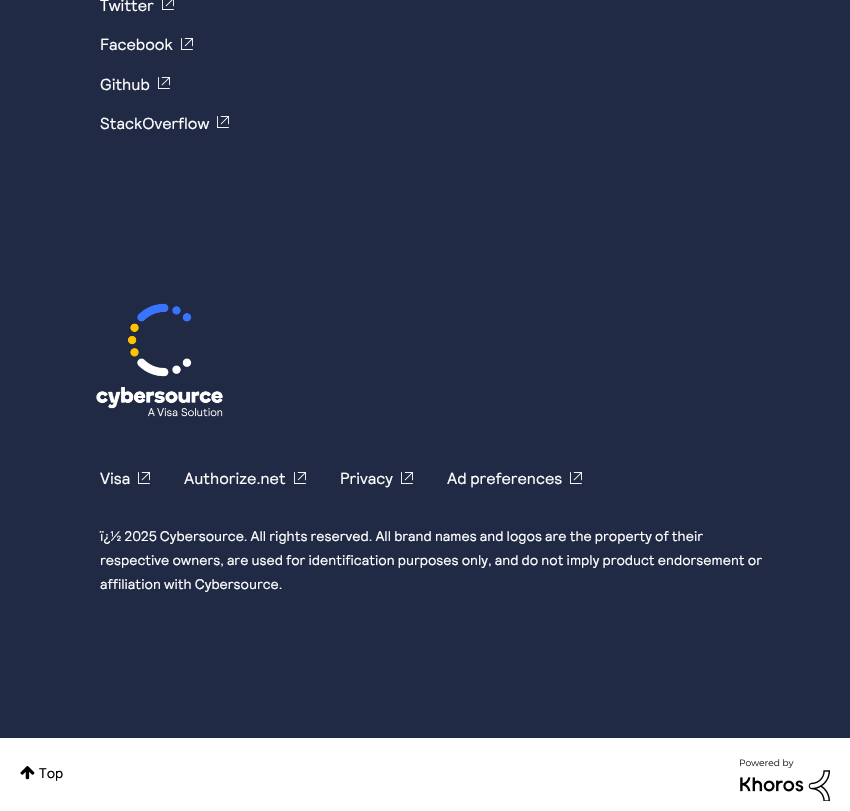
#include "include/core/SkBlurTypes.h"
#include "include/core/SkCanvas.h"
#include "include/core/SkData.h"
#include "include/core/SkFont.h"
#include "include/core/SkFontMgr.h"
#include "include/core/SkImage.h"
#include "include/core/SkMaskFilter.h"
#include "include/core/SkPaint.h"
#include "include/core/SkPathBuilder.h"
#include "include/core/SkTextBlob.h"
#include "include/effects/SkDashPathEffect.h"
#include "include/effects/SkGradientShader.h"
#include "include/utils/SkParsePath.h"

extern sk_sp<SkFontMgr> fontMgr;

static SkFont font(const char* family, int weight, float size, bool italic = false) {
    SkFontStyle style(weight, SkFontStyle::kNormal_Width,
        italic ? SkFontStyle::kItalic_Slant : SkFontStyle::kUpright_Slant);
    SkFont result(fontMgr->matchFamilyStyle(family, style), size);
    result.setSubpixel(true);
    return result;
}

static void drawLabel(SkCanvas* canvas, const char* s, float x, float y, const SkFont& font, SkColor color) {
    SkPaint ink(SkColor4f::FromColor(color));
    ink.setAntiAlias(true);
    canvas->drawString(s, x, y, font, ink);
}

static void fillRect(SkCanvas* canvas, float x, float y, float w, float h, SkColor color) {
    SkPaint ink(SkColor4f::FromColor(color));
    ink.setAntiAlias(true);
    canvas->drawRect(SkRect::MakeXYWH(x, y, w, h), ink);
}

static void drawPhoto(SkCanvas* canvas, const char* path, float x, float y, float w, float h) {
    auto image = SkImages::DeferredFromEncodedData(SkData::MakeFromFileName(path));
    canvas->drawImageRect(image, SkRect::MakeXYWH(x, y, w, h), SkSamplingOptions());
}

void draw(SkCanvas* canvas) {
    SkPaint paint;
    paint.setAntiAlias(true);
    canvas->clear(0xFFFFFFFF);
    fillRect(canvas, 0, 0, 850, 738, 0xFF202A44);
    SkFont font1 = font("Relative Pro", 400, 16);
    drawLabel(canvas, "Twitter", 100, 11, font1, 0xFFFFFFFF);
    drawPhoto(canvas, "assets/img1.png", 162, 0, 12, 10);
    drawLabel(canvas, "Facebook", 100, 50, font1, 0xFFFFFFFF);
    drawPhoto(canvas, "assets/img2.png", 181, 38, 12, 12);
    drawLabel(canvas, "Github", 100, 90, font1, 0xFFFFFFFF);
    drawPhoto(canvas, "assets/img2.png", 158, 77, 12, 12);
    drawLabel(canvas, "StackOverflow", 100, 129, font1, 0xFFFFFFFF);
    drawPhoto(canvas, "assets/img2.png", 217, 116, 12, 12);
    drawPhoto(canvas, "assets/img3.png", 96, 303, 127, 114);
    drawLabel(canvas, "Visa", 100, 484, font1, 0xFFFFFFFF);
    drawPhoto(canvas, "assets/img2.png", 138, 472, 12, 12);
    drawLabel(canvas, "Authorize.net", 184, 484, font1, 0xFFFFFFFF);
    drawPhoto(canvas, "assets/img2.png", 294, 472, 12, 12);
    drawLabel(canvas, "Privacy", 340, 484, font1, 0xFFFFFFFF);
    drawPhoto(canvas, "assets/img2.png", 401, 472, 12, 12);
    drawLabel(canvas, "Ad preferences", 447, 484, font1, 0xFFFFFFFF);
    drawPhoto(canvas, "assets/img2.png", 570, 472, 12, 12);
    SkFont font2 = font("Relative Pro", 400, 14);
    drawLabel(canvas, "ï¿½ 2025 Cybersource. All rights reserved. All brand names and logos are the property of their", 100, 541, font2, 0xFFFFFFFF);
    drawLabel(canvas, "respective owners, are used for identification purposes only, and do not imply product endorsement or", 100, 565, font2, 0xFFFFFFFF);
    drawLabel(canvas, "affiliation with Cybersource.", 100, 589, font2, 0xFFFFFFFF);
    drawPhoto(canvas, "assets/img4.png", 20, 766, 15, 14);
    drawLabel(canvas, "Top", 39, 778, font2, 0xFF000000);
    drawPhoto(canvas, "assets/img5.png", 740, 759, 90, 42);
}
